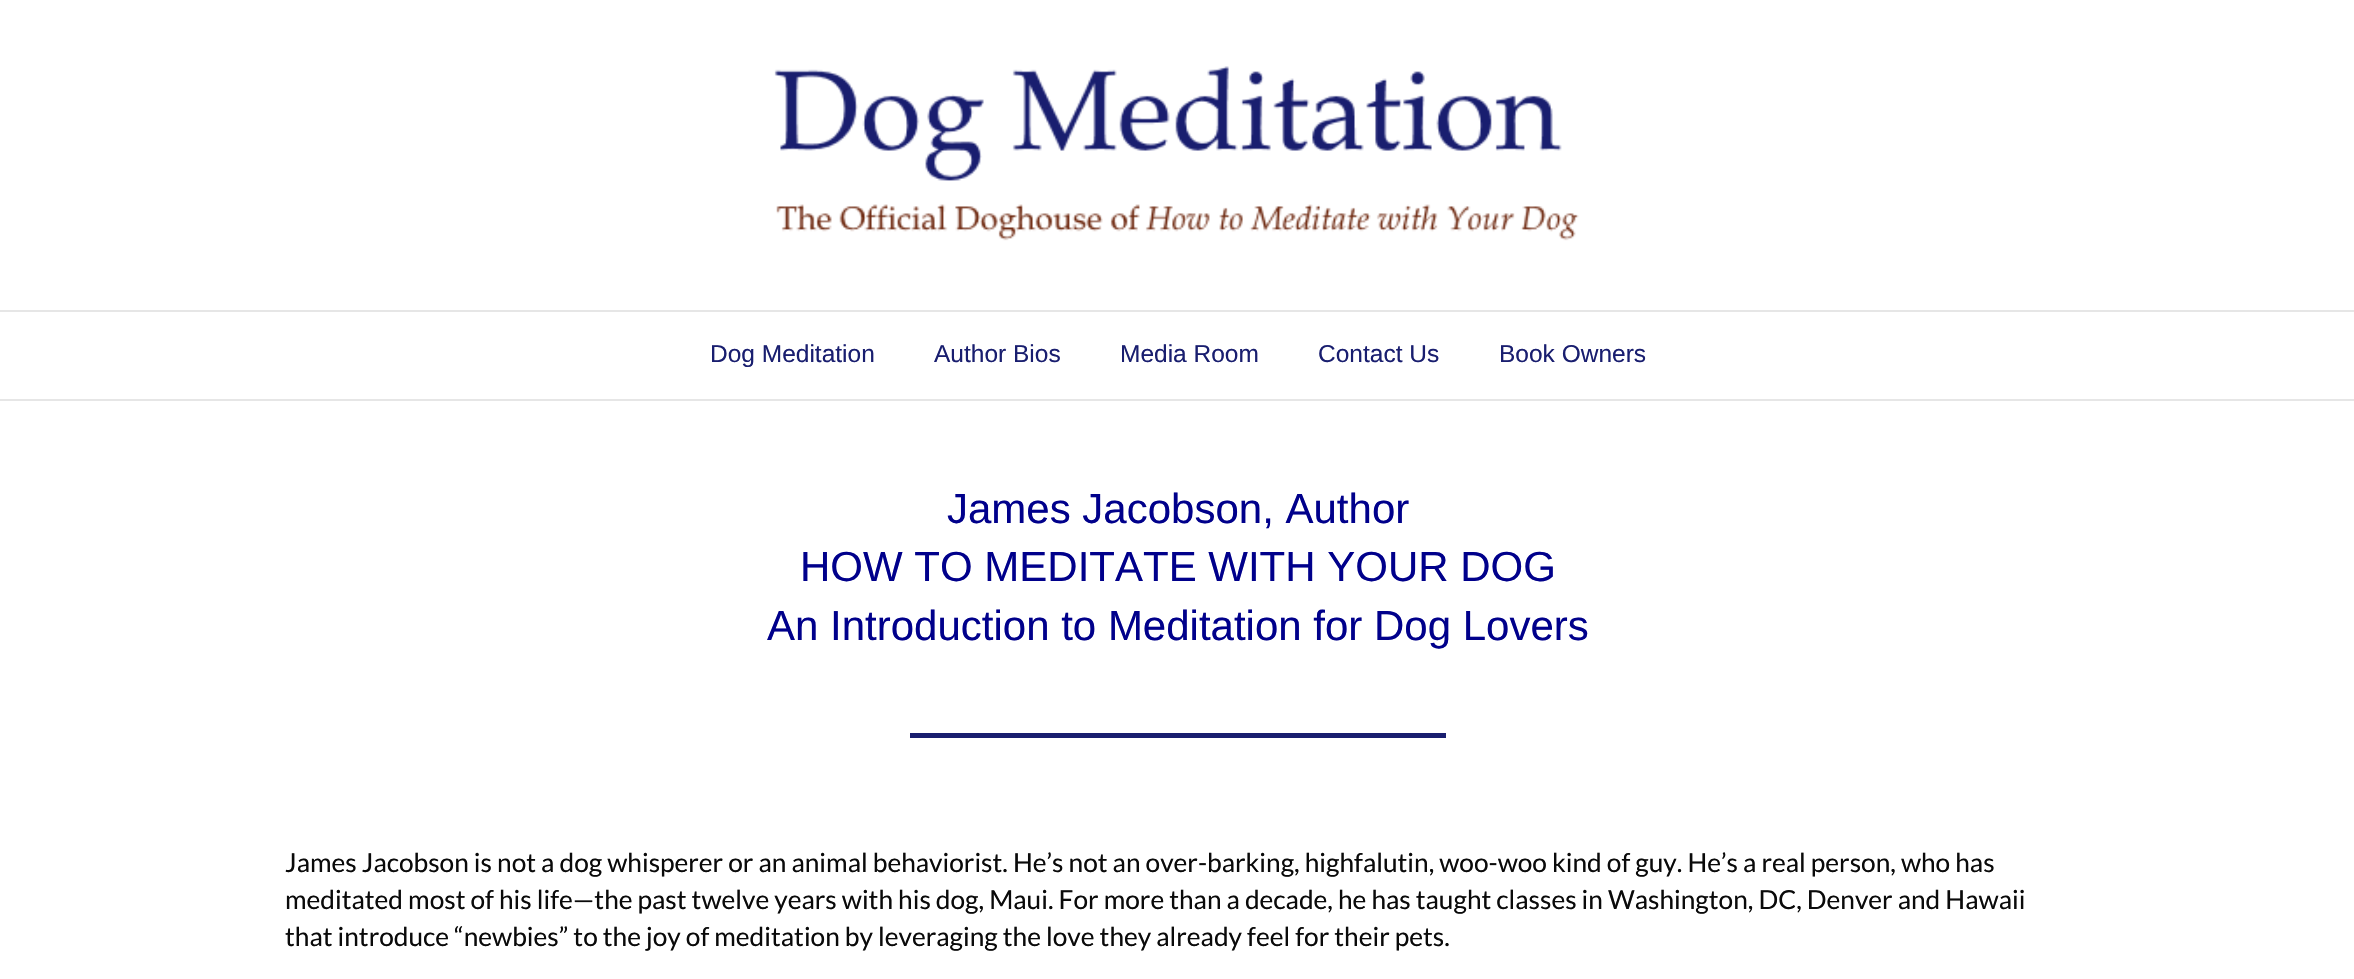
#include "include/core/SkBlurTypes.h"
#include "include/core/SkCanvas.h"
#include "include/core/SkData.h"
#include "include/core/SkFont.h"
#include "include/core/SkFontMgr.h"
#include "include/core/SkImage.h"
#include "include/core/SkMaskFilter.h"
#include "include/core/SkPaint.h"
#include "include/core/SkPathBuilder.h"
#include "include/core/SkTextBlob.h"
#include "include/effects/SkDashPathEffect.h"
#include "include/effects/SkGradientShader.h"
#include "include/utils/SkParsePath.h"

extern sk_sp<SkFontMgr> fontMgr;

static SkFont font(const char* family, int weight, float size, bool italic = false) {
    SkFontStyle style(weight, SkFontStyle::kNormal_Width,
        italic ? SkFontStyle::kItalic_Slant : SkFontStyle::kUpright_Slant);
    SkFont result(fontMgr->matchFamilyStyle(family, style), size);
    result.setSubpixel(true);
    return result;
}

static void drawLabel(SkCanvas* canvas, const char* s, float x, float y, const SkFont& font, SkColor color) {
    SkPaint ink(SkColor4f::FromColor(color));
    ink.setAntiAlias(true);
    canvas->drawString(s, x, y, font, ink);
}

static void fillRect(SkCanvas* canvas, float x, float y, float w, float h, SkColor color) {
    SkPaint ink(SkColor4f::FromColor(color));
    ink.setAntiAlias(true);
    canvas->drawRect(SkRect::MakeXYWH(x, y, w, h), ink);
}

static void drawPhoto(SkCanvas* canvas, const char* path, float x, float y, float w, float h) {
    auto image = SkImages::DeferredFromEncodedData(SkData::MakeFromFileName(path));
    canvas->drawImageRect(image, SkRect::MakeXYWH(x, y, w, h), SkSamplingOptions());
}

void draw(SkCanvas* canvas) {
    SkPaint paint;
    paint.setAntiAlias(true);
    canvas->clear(0xFFFFFFFF);
    drawPhoto(canvas, "assets/img1.png", 774, 66, 805, 175);
    fillRect(canvas, 0, 310, 2354, 2, 0xFFE6E6E6);
    fillRect(canvas, 0, 399, 2354, 2, 0xFFE6E6E6);
    SkFont font1 = font("Liberation Sans", 400, 24.5f);
    drawLabel(canvas, "Dog Meditation", 710, 362, font1, 0xFF191E6F);
    drawLabel(canvas, "Author Bios", 934, 362, font1, 0xFF191E6F);
    drawLabel(canvas, "Media Room", 1120, 362, font1, 0xFF191E6F);
    drawLabel(canvas, "Contact Us", 1318, 362, font1, 0xFF191E6F);
    drawLabel(canvas, "Book Owners", 1499, 362, font1, 0xFF191E6F);
    SkFont font2 = font("Liberation Sans", 400, 42);
    drawLabel(canvas, "James Jacobson, Author", 947, 523, font2, 0xFF00008B);
    drawLabel(canvas, "HOW TO MEDITATE WITH YOUR DOG", 800, 581, font2, 0xFF00008B);
    drawLabel(canvas, "An Introduction to Meditation for Dog Lovers", 767, 640, font2, 0xFF00008B);
    fillRect(canvas, 910, 733, 536, 5, 0xFF191E6F);
    SkFont font3 = font("Lato", 400, 26.25f);
    drawLabel(canvas, "James Jacobson is not a dog whisperer or an animal behaviorist. He’s not an over-barking, highfalutin, woo-woo kind of guy. He’s a real person, who has", 285, 872, font3, 0xFF0A0A0A);
    drawLabel(canvas, "meditated most of his life—the past twelve years with his dog, Maui. For more than a decade, he has taught classes in Washington, DC, Denver and Hawaii", 285, 909, font3, 0xFF0A0A0A);
    drawLabel(canvas, "that introduce “newbies” to the joy of meditation by leveraging the love they already feel for their pets.", 285, 946, font3, 0xFF0A0A0A);
}
